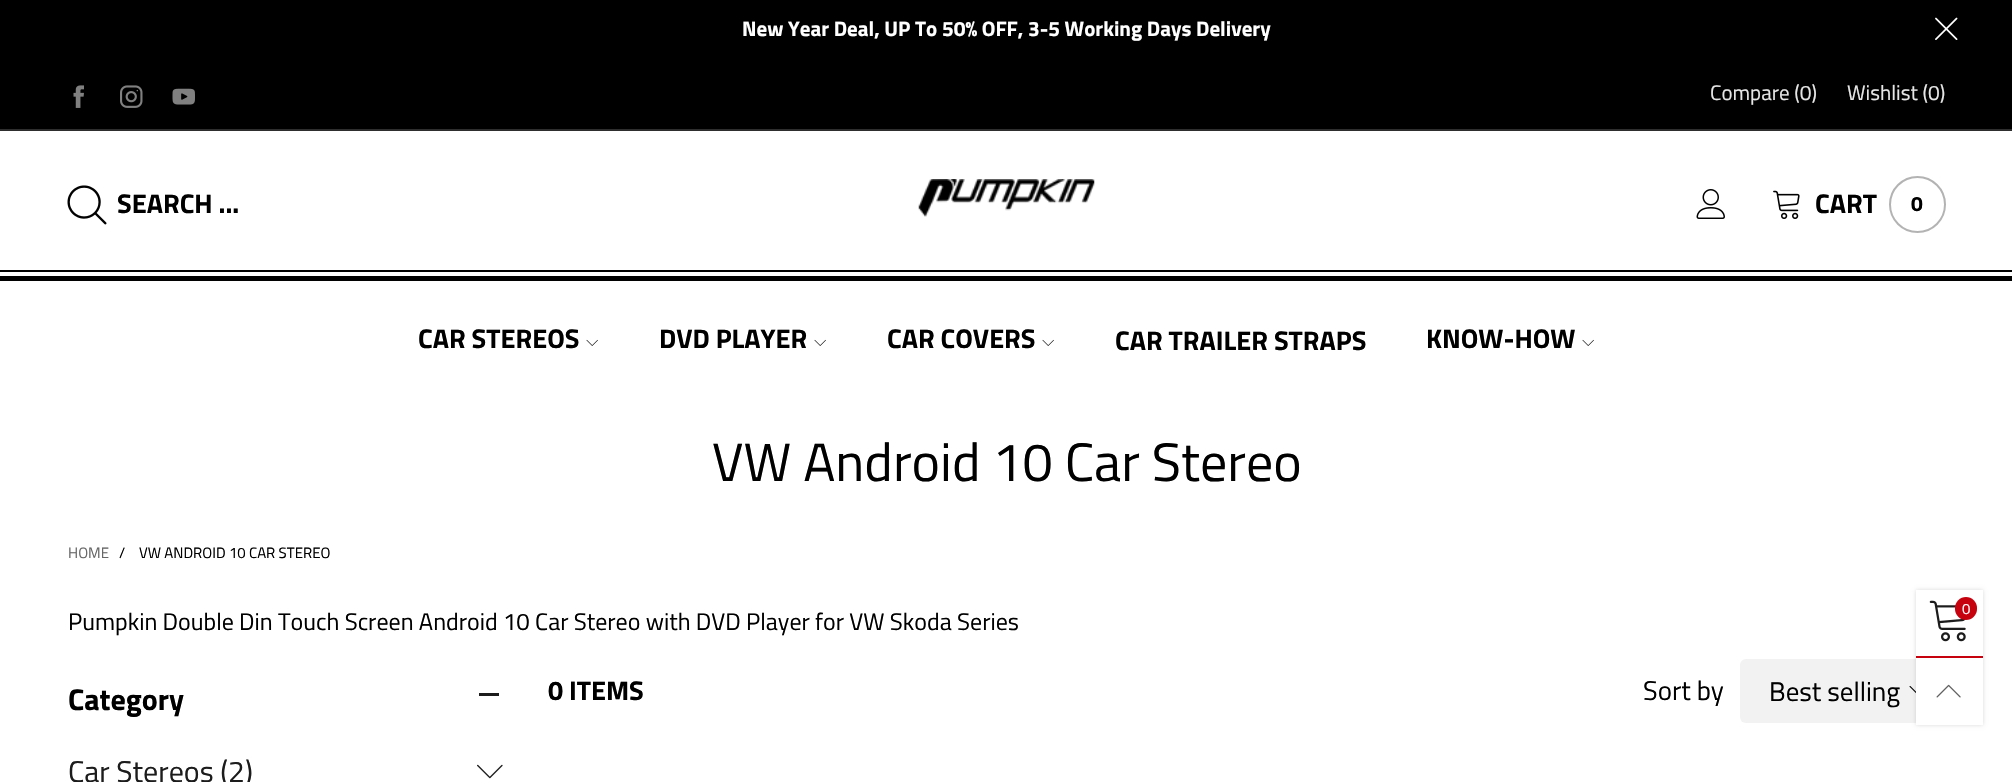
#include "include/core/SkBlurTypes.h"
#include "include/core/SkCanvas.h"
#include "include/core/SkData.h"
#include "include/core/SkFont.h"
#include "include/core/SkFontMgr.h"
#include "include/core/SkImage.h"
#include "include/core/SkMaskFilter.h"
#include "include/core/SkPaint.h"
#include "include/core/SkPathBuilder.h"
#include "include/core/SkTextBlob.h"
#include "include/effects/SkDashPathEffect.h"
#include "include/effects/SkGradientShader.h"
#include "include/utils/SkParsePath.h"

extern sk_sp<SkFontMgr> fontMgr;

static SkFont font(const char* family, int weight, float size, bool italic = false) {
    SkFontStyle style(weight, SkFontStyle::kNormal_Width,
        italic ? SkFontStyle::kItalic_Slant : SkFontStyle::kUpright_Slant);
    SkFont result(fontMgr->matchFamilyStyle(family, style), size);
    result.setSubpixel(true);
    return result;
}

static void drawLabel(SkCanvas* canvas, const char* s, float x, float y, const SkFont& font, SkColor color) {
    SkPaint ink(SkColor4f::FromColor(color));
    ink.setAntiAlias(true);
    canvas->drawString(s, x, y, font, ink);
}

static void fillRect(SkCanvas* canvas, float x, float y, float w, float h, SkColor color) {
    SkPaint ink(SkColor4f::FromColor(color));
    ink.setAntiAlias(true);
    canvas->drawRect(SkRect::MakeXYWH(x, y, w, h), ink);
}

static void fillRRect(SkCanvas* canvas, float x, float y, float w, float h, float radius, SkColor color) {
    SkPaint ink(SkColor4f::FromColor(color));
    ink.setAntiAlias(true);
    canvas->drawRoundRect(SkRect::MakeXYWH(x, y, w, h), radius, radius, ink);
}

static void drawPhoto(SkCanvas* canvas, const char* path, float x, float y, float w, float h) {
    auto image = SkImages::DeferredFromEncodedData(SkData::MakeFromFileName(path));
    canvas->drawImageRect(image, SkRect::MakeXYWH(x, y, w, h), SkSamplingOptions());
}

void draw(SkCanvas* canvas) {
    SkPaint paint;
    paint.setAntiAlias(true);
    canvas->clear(0xFFFFFFFF);
    fillRect(canvas, 0, 0, 2012, 129, 0xFF000000);
    SkFont font1 = font("Titillium Web", 700, 21);
    drawLabel(canvas, "New Year Deal, UP To 50% OFF, 3-5 Working Days Delivery", 742, 36, font1, 0xFFFFFFFF);
    drawPhoto(canvas, "assets/img1.png", 1935, 17, 23, 23);
    fillRect(canvas, 0, 129, 2012, 2, 0xFF2E2E2E);
    drawPhoto(canvas, "assets/img2.png", 73, 85, 11, 23);
    drawPhoto(canvas, "assets/img3.png", 120, 85, 23, 23);
    drawPhoto(canvas, "assets/img4.png", 172, 88, 23, 17);
    SkFont font2 = font("Titillium Web", 400, 21);
    drawLabel(canvas, "Compare (0)", 1710, 100, font2, 0xFFE6E6E6);
    drawLabel(canvas, "Wishlist (0)", 1847, 100, font2, 0xFFE6E6E6);
    drawPhoto(canvas, "assets/img5.png", 67, 185, 40, 40);
    SkFont font3 = font("Titillium Web", 700, 27);
    drawLabel(canvas, "SEARCH ...", 117, 213, font3, 0xFF000000);
    drawPhoto(canvas, "assets/img6.png", 918, 179, 177, 38);
    drawPhoto(canvas, "assets/img7.png", 1696, 189, 29, 30);
    drawPhoto(canvas, "assets/img8.png", 1773, 190, 27, 29);
    drawLabel(canvas, "CART", 1815, 213, font3, 0xFF000000);
    paint.setStroke(true);
    paint.setStrokeWidth(2);
    paint.setColor(0xFFB3B3B3);
    canvas->drawCircle(1917.5f, 204.5f, 27.5f, paint);
    drawLabel(canvas, "0", 1911, 211, font1, 0xFF000000);
    fillRect(canvas, 0, 270, 2012, 2, 0xFF010101);
    fillRect(canvas, 0, 276, 2012, 5, 0xFF010101);
    drawLabel(canvas, "CAR STEREOS", 418, 348, font3, 0xFF000000);
    drawPhoto(canvas, "assets/img9.png", 586, 339, 12, 7);
    drawLabel(canvas, "DVD PLAYER", 659, 348, font3, 0xFF000000);
    drawPhoto(canvas, "assets/img9.png", 814, 339, 12, 7);
    drawLabel(canvas, "CAR COVERS", 887, 348, font3, 0xFF000000);
    drawPhoto(canvas, "assets/img9.png", 1042, 339, 12, 7);
    drawLabel(canvas, "CAR TRAILER STRAPS", 1115, 350, font3, 0xFF000000);
    drawLabel(canvas, "KNOW-HOW", 1426, 348, font3, 0xFF000000);
    drawPhoto(canvas, "assets/img9.png", 1582, 339, 12, 7);
    SkFont font4 = font("Titillium Web", 400, 54);
    drawLabel(canvas, "VW Android 10 Car Stereo", 712, 481, font4, 0xFF000000);
    SkFont font5 = font("Titillium Web", 400, 15);
    drawLabel(canvas, "HOME", 68, 558, font5, 0xFF666666);
    drawLabel(canvas, "/", 119, 558, font5, 0xFF000000);
    drawLabel(canvas, "VW ANDROID 10 CAR STEREO", 139, 558, font5, 0xFF000000);
    SkFont font6 = font("Titillium Web", 400, 24);
    drawLabel(canvas, "Pumpkin Double Din Touch Screen Android 10 Car Stereo with DVD Player for VW Skoda Series", 68, 630, font6, 0xFF000000);
    SkFont font7 = font("Titillium Web", 700, 30);
    drawLabel(canvas, "Category", 68, 710, font7, 0xFF000000);
    fillRect(canvas, 479, 693, 20, 3, 0xFF1C1C1C);
    SkFont font8 = font("Titillium Web", 400, 30);
    drawLabel(canvas, "Car Stereos (2)", 68, 782, font8, 0xFF1C1C1C);
    drawPhoto(canvas, "assets/img10.png", 477, 764, 26, 15);
    drawLabel(canvas, "0 ITEMS", 548, 700, font3, 0xFF000000);
    SkFont font9 = font("Titillium Web", 400, 27);
    drawLabel(canvas, "Sort by", 1643, 700, font9, 0xFF000000);
    fillRRect(canvas, 1740, 659, 206, 64, 6, 0xFFF2F2F2);
    drawLabel(canvas, "Best selling", 1769, 701, font9, 0xFF000000);
    drawPhoto(canvas, "assets/img11.png", 1909, 686, 7, 7);
    paint.setStroke(false);
    paint.setColor(0x26000000);
    paint.setMaskFilter(SkMaskFilter::MakeBlur(kNormal_SkBlurStyle, 2));
    canvas->drawRect(SkRect::MakeXYWH(1916, 590, 67, 135), paint);
    paint.setMaskFilter(nullptr);
    fillRect(canvas, 1916, 590, 67, 135, 0xFFFFFFFF);
    fillRect(canvas, 1916, 656, 67, 2, 0xFFC7020F);
    drawPhoto(canvas, "assets/img12.png", 1929, 600, 37, 42);
    fillRRect(canvas, 1955, 597, 22, 23, 11, 0xFFC7020F);
    drawLabel(canvas, "0", 1962, 614, font5, 0xFFFFFFFF);
    drawPhoto(canvas, "assets/img13.png", 1936, 684, 25, 14);
}
